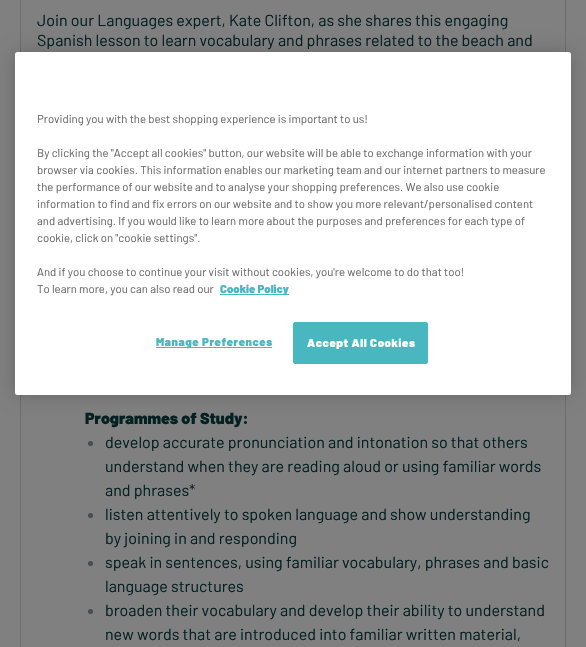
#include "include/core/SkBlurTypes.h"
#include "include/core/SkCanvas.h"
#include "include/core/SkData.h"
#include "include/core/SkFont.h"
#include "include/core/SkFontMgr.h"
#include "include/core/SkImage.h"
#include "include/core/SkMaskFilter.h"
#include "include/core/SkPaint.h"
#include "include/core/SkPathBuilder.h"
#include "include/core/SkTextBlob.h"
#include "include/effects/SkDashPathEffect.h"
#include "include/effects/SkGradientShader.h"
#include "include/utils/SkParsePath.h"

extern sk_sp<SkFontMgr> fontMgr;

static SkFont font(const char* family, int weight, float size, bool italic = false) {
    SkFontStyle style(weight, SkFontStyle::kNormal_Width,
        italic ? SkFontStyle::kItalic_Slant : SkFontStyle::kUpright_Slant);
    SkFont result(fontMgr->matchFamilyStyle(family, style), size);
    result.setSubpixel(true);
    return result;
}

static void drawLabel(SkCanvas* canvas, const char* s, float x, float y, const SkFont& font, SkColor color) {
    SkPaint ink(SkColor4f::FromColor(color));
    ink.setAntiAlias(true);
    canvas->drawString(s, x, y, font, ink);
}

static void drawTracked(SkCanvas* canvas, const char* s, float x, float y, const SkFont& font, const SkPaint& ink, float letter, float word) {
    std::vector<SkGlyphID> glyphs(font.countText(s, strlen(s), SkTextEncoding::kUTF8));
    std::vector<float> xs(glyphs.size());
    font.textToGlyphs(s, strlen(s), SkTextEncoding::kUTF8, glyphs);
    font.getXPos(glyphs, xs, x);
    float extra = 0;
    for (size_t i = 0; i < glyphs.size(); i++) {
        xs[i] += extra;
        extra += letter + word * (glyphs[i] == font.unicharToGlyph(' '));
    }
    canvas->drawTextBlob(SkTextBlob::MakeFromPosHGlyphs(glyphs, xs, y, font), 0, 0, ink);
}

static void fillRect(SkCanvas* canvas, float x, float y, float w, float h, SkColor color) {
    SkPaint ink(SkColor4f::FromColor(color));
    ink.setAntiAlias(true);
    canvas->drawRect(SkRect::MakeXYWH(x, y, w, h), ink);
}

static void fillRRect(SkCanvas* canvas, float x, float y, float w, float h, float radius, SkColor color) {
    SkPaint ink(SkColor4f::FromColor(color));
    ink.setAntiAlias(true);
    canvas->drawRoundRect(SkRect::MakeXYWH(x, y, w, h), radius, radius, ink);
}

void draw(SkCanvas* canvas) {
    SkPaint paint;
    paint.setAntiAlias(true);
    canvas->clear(0xFF808080);
    paint.setStroke(true);
    paint.setStrokeWidth(1);
    paint.setColor(0xFF6B6F6F);
    canvas->drawRect(SkRect::MakeXYWH(20.5f, -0.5f, 545, 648), paint);
    SkFont font1 = font("Barlow", 400, 16);
    drawLabel(canvas, "Join our Languages expert, Kate Clifton, as she shares this engaging", 37, 26, font1, 0xFF042023);
    drawLabel(canvas, "Spanish lesson to learn vocabulary and phrases related to the beach and", 37, 46, font1, 0xFF042023);
    SkFont font2 = font("Barlow", 900, 16);
    drawLabel(canvas, "Programmes of Study:", 85, 424, font2, 0xFF042023);
    paint.setStroke(false);
    paint.setColor(0xFF425052);
    canvas->drawCircle(90.5f, 443.5f, 2.5f, paint);
    drawLabel(canvas, "develop accurate pronunciation and intonation so that others", 105, 448, font1, 0xFF042023);
    drawLabel(canvas, "understand when they are reading aloud or using familiar words", 105, 472, font1, 0xFF042023);
    drawLabel(canvas, "and phrases*", 105, 496, font1, 0xFF042023);
    canvas->drawCircle(90.5f, 515.5f, 2.5f, paint);
    drawLabel(canvas, "listen attentively to spoken language and show understanding", 105, 520, font1, 0xFF042023);
    drawLabel(canvas, "by joining in and responding", 105, 544, font1, 0xFF042023);
    canvas->drawCircle(90.5f, 563.5f, 2.5f, paint);
    drawLabel(canvas, "speak in sentences, using familiar vocabulary, phrases and basic", 105, 568, font1, 0xFF042023);
    drawLabel(canvas, "language structures", 105, 592, font1, 0xFF042023);
    canvas->drawCircle(90.5f, 611.5f, 2.5f, paint);
    drawLabel(canvas, "broaden their vocabulary and develop their ability to understand", 105, 616, font1, 0xFF042023);
    drawLabel(canvas, "new words that are introduced into familiar written material,", 105, 640, font1, 0xFF042023);
    paint.setColor(0x33000000);
    paint.setMaskFilter(SkMaskFilter::MakeBlur(kNormal_SkBlurStyle, 9));
    canvas->drawRoundRect(SkRect::MakeXYWH(15, 52, 556, 343), 2.5f, 2.5f, paint);
    paint.setMaskFilter(nullptr);
    fillRRect(canvas, 15, 52, 556, 343, 2.5f, 0xFFFFFFFF);
    SkFont font3 = font("Barlow", 400, 11.4f);
    drawLabel(canvas, "Providing you with the best shopping experience is important to us!", 37, 123, font3, 0xFF696969);
    drawLabel(canvas, "By clicking the \"Accept all cookies\" button, our website will be able to exchange information with your", 37, 157, font3, 0xFF696969);
    drawLabel(canvas, "browser via cookies. This information enables our marketing team and our internet partners to measure", 37, 174, font3, 0xFF696969);
    drawLabel(canvas, "the performance of our website and to analyse your shopping preferences. We also use cookie", 37, 191, font3, 0xFF696969);
    drawLabel(canvas, "information to find and fix errors on our website and to show you more relevant/personalised content", 37, 208, font3, 0xFF696969);
    drawLabel(canvas, "and advertising. If you would like to learn more about the purposes and preferences for each type of", 37, 225, font3, 0xFF696969);
    drawLabel(canvas, "cookie, click on \"cookie settings\".", 37, 242, font3, 0xFF696969);
    drawLabel(canvas, "And if you choose to continue your visit without cookies, you're welcome to do that too!", 37, 276, font3, 0xFF696969);
    drawLabel(canvas, "To learn more, you can also read our", 37, 293, font3, 0xFF696969);
    fillRect(canvas, 220, 294, 69, 1, 0xFF49B7BF);
    SkFont font4 = font("Barlow", 900, 11.4f);
    drawLabel(canvas, "Cookie Policy", 220, 293, font4, 0xFF49B7BF);
    fillRect(canvas, 156, 347, 116, 1, 0xFF49B7BF);
    paint.setColor(0xFF49B7BF);
    drawTracked(canvas, "Manage Preferences", 156, 346, font4, paint, 0.6f, 0);
    canvas->drawRoundRect(SkRect::MakeXYWH(293.5f, 322.5f, 134, 41), 1.5f, 1.5f, paint);
    paint.setStroke(true);
    canvas->drawRoundRect(SkRect::MakeXYWH(293.5f, 322.5f, 134, 41), 1.5f, 1.5f, paint);
    paint.setStroke(false);
    paint.setColor(0xFFFFFFFF);
    drawTracked(canvas, "Accept All Cookies", 307, 347, font4, paint, 0.6f, 0);
}
